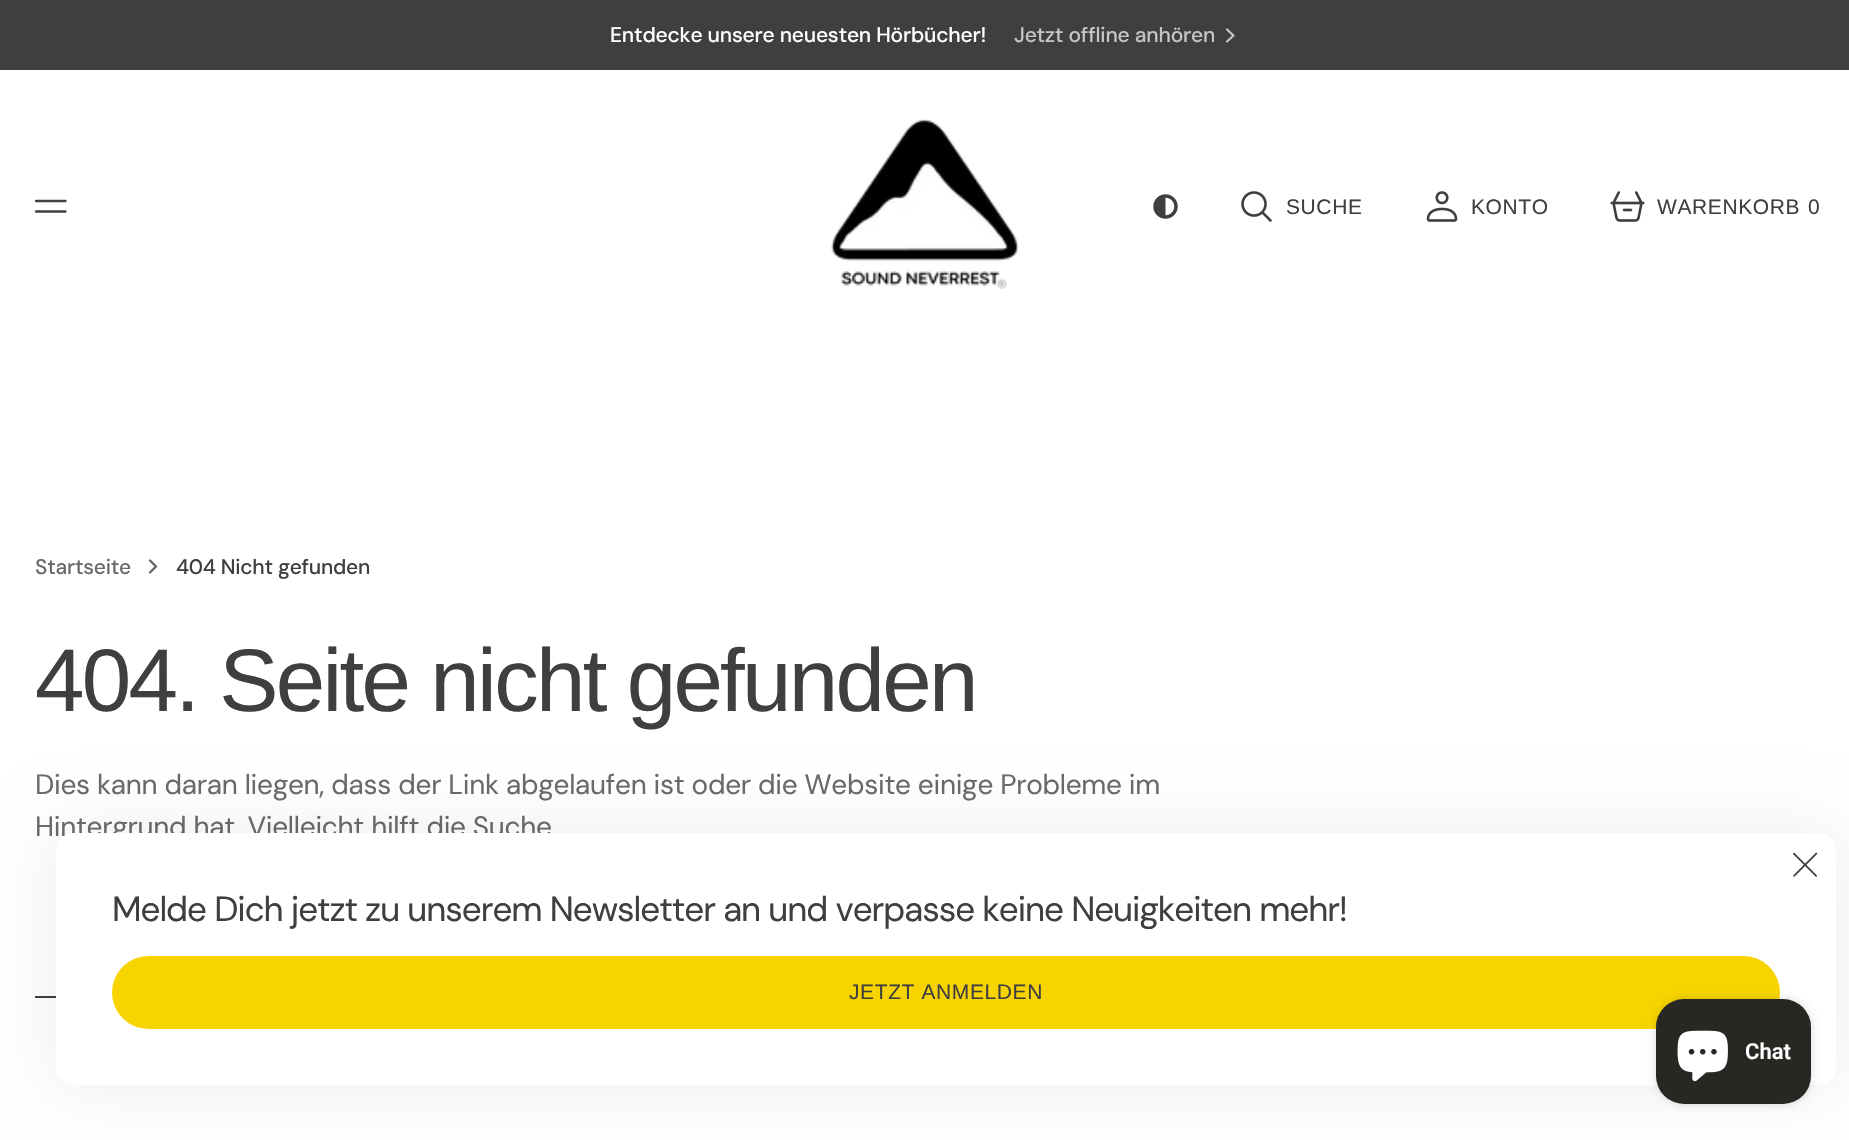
#include "include/core/SkBlurTypes.h"
#include "include/core/SkCanvas.h"
#include "include/core/SkData.h"
#include "include/core/SkFont.h"
#include "include/core/SkFontMgr.h"
#include "include/core/SkImage.h"
#include "include/core/SkMaskFilter.h"
#include "include/core/SkPaint.h"
#include "include/core/SkPathBuilder.h"
#include "include/core/SkTextBlob.h"
#include "include/effects/SkDashPathEffect.h"
#include "include/effects/SkGradientShader.h"
#include "include/utils/SkParsePath.h"

extern sk_sp<SkFontMgr> fontMgr;

static SkFont font(const char* family, int weight, float size, bool italic = false) {
    SkFontStyle style(weight, SkFontStyle::kNormal_Width,
        italic ? SkFontStyle::kItalic_Slant : SkFontStyle::kUpright_Slant);
    SkFont result(fontMgr->matchFamilyStyle(family, style), size);
    result.setSubpixel(true);
    return result;
}

static void drawLabel(SkCanvas* canvas, const char* s, float x, float y, const SkFont& font, SkColor color) {
    SkPaint ink(SkColor4f::FromColor(color));
    ink.setAntiAlias(true);
    canvas->drawString(s, x, y, font, ink);
}

static void drawTracked(SkCanvas* canvas, const char* s, float x, float y, const SkFont& font, const SkPaint& ink, float letter, float word) {
    std::vector<SkGlyphID> glyphs(font.countText(s, strlen(s), SkTextEncoding::kUTF8));
    std::vector<float> xs(glyphs.size());
    font.textToGlyphs(s, strlen(s), SkTextEncoding::kUTF8, glyphs);
    font.getXPos(glyphs, xs, x);
    float extra = 0;
    for (size_t i = 0; i < glyphs.size(); i++) {
        xs[i] += extra;
        extra += letter + word * (glyphs[i] == font.unicharToGlyph(' '));
    }
    canvas->drawTextBlob(SkTextBlob::MakeFromPosHGlyphs(glyphs, xs, y, font), 0, 0, ink);
}

static void fillRect(SkCanvas* canvas, float x, float y, float w, float h, SkColor color) {
    SkPaint ink(SkColor4f::FromColor(color));
    ink.setAntiAlias(true);
    canvas->drawRect(SkRect::MakeXYWH(x, y, w, h), ink);
}

static void fillRRect(SkCanvas* canvas, float x, float y, float w, float h, float radius, SkColor color) {
    SkPaint ink(SkColor4f::FromColor(color));
    ink.setAntiAlias(true);
    canvas->drawRoundRect(SkRect::MakeXYWH(x, y, w, h), radius, radius, ink);
}

static void drawPhoto(SkCanvas* canvas, const char* path, float x, float y, float w, float h) {
    auto image = SkImages::DeferredFromEncodedData(SkData::MakeFromFileName(path));
    canvas->drawImageRect(image, SkRect::MakeXYWH(x, y, w, h), SkSamplingOptions());
}

static SkPath parsePath(const char* data, bool evenOdd = false) {
    SkPath result = *SkParsePath::FromSVGString(data);
    if (evenOdd) result.setFillType(SkPathFillType::kEvenOdd);
    return result;
}

void draw(SkCanvas* canvas) {
    SkPaint paint;
    paint.setAntiAlias(true);
    canvas->clear(0xFFFFFFFF);
    fillRect(canvas, 0, 0, 1849, 70, 0xFF3F3F3F);
    SkFont font1 = font("DM Sans", 500, 21);
    paint.setColor(0xFFFFFFFF);
    drawTracked(canvas, "Entdecke unsere neuesten Hörbücher!", 610, 42, font1, paint, -0.2f, 0);
    paint.setColor(0xFFC5C5C5);
    drawTracked(canvas, "Jetzt offline anhören", 1014, 42, font1, paint, -0.2f, 0);
    paint.setStroke(true);
    paint.setStrokeWidth(2.3f);
    paint.setStrokeCap(SkPaint::kRound_Cap);
    paint.setStrokeJoin(SkPaint::kRound_Join);
    canvas->drawPath(parsePath("M1227 41.5L1233.5 35.5L1227 29.5"), paint);
    paint.setStrokeJoin(SkPaint::kMiter_Join);
    paint.setColor(0xFF3F3F3F);
    canvas->drawPath(parsePath("M36 201H65.5M36 211.5H65.5"), paint);
    drawPhoto(canvas, "assets/img1.png", 831, 119, 188, 170);
    drawPhoto(canvas, "assets/img2.png", 1153, 194, 25, 25);
    drawPhoto(canvas, "assets/img3.png", 1241, 191, 31, 31);
    SkFont font2 = font("Arimo", 400, 21);
    paint.setStroke(false);
    drawTracked(canvas, "SUCHE", 1286, 214, font2, paint, 0.6f, 0);
    drawPhoto(canvas, "assets/img4.png", 1426, 191, 32, 31);
    drawTracked(canvas, "KONTO", 1471, 214, font2, paint, 0.6f, 0);
    drawPhoto(canvas, "assets/img5.png", 1610, 191, 35, 31);
    drawTracked(canvas, "WARENKORB", 1657, 214, font2, paint, 0.6f, 0);
    drawTracked(canvas, "0", 1808, 214, font2, paint, 0.6f, 0);
    paint.setColor(0xFF6A6A6A);
    drawTracked(canvas, "Startseite", 35, 574, font1, paint, -0.28f, 0);
    paint.setStroke(true);
    paint.setStrokeJoin(SkPaint::kRound_Join);
    paint.setColor(0xFF656565);
    canvas->drawPath(parsePath("M150 572.5L156 566.5L150 560.5"), paint);
    paint.setStroke(false);
    paint.setColor(0xFF3F3F3F);
    drawTracked(canvas, "404 Nicht gefunden", 176, 574, font1, paint, -0.28f, 0);
    SkFont font3 = font("Arimo", 400, 88.9f);
    drawTracked(canvas, "404. Seite nicht gefunden", 35, 711, font3, paint, -2.7f, 0);
    SkFont font4 = font("DM Sans", 400, 28);
    paint.setColor(0xFF6A6A6A);
    drawTracked(canvas, "Dies kann daran liegen, dass der Link abgelaufen ist oder die Website einige Probleme im", 35, 794, font4, paint, -0.28f, 0);
    drawTracked(canvas, "Hintergrund hat. Vielleicht hilft die Suche", 35, 836, font4, paint, -0.28f, 0);
    fillRect(canvas, 35, 996, 21, 2, 0xFF3F3F3F);
    paint.setColor(0x12000000);
    paint.setMaskFilter(SkMaskFilter::MakeBlur(kNormal_SkBlurStyle, 35));
    canvas->drawRoundRect(SkRect::MakeXYWH(56, 833, 1780, 252), 18, 18, paint);
    paint.setMaskFilter(nullptr);
    fillRRect(canvas, 56, 833, 1780, 252, 18, 0xFFFFFFFF);
    drawPhoto(canvas, "assets/img6.png", 1793, 852, 25, 25);
    SkFont font5 = font("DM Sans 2", 400, 35);
    paint.setColor(0xFF3F3F3F);
    drawTracked(canvas, "Melde Dich jetzt zu unserem Newsletter an und verpasse keine Neuigkeiten mehr!", 112, 921, font5, paint, -1.05f, 0);
    fillRRect(canvas, 112, 956, 1668, 73, 36.5f, 0xFFF7D400);
    drawTracked(canvas, "JETZT ANMELDEN", 849, 999, font2, paint, 0.6f, 0);
    paint.setColor(0x26000000);
    paint.setMaskFilter(SkMaskFilter::MakeBlur(kNormal_SkBlurStyle, 4.5f));
    canvas->drawRoundRect(SkRect::MakeXYWH(1656, 999, 155, 105), 28, 28, paint);
    paint.setMaskFilter(nullptr);
    fillRRect(canvas, 1656, 999, 155, 105, 28, 0xFF272724);
    drawPhoto(canvas, "assets/img7.png", 1677, 1030, 51, 52);
    SkFont font6 = font("Roboto", 600, 22);
    drawLabel(canvas, "Chat", 1745, 1059, font6, 0xFFFFFFFF);
}
